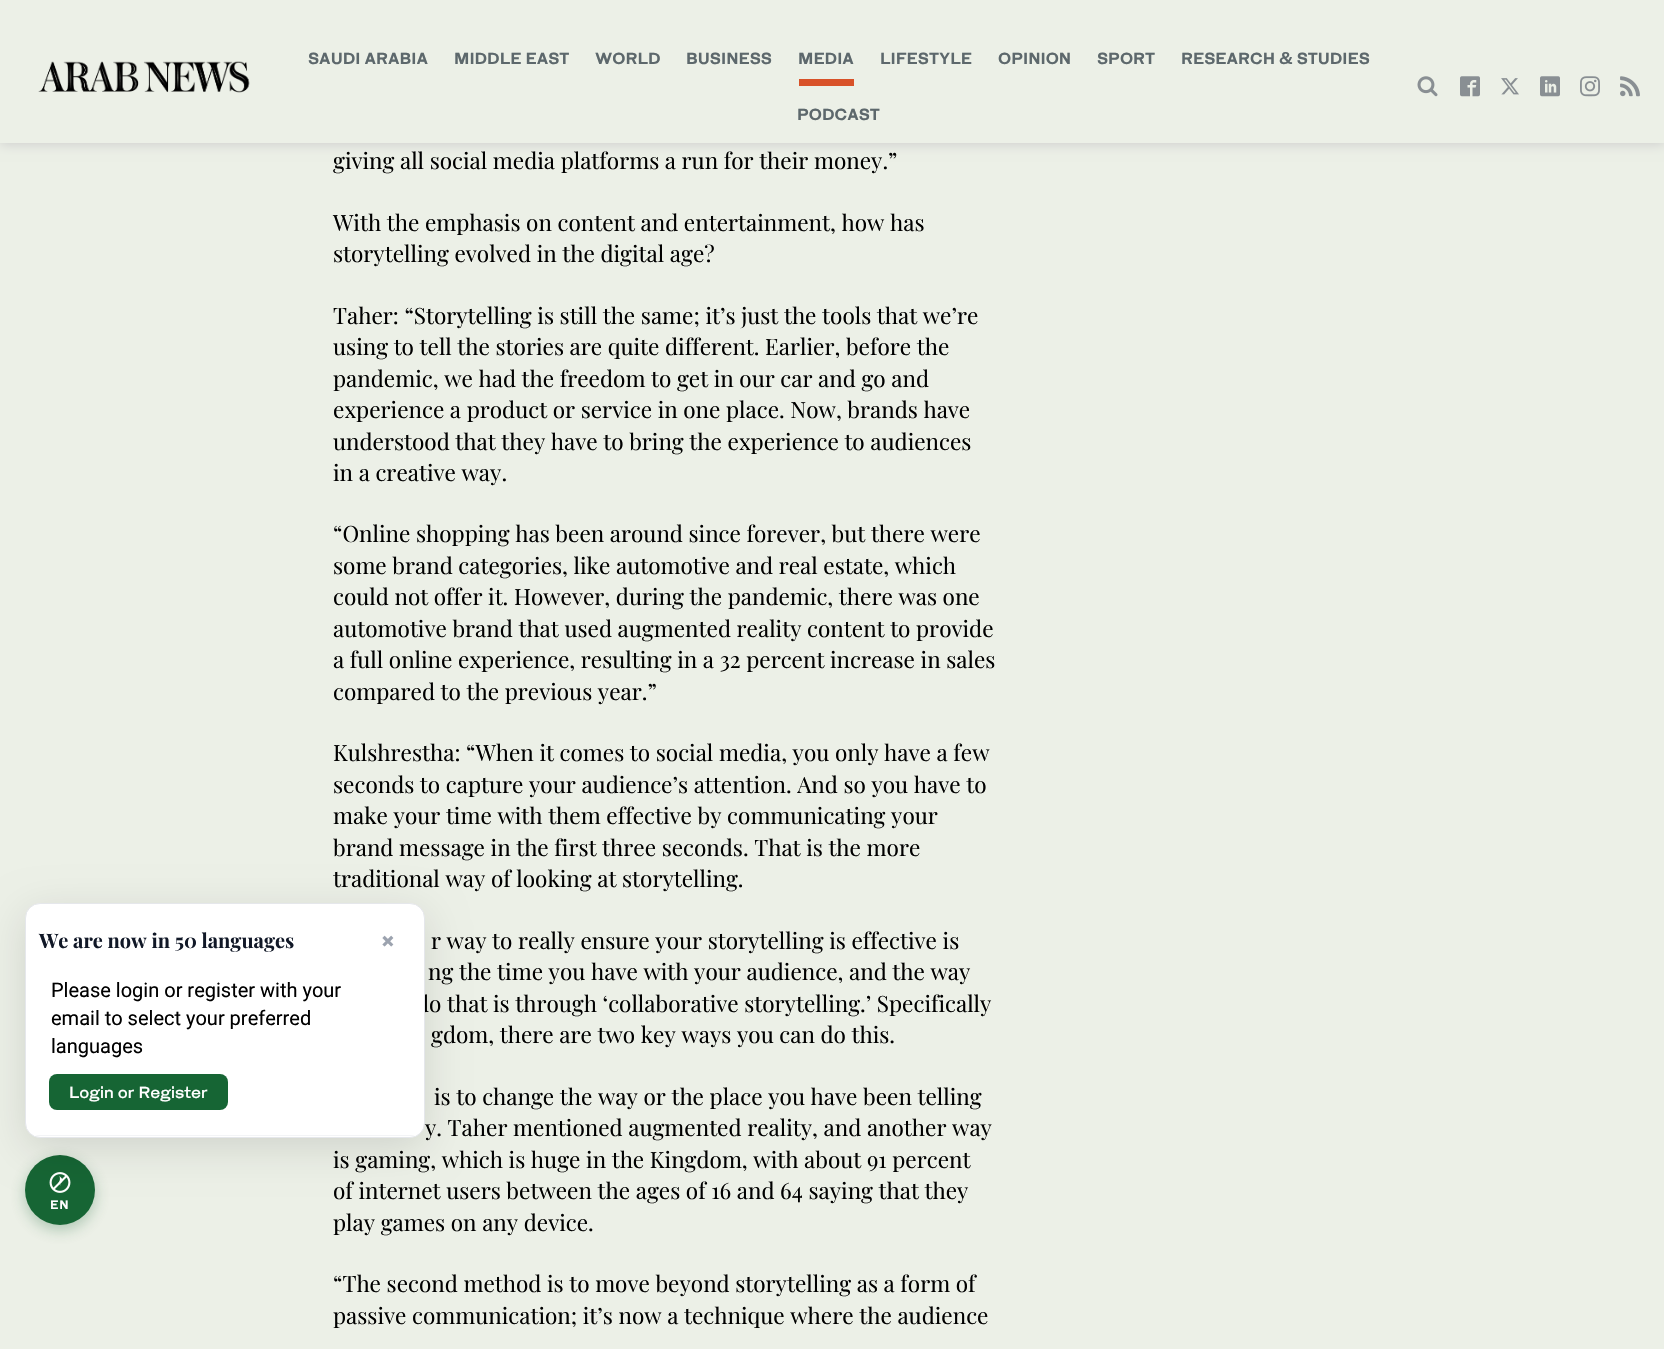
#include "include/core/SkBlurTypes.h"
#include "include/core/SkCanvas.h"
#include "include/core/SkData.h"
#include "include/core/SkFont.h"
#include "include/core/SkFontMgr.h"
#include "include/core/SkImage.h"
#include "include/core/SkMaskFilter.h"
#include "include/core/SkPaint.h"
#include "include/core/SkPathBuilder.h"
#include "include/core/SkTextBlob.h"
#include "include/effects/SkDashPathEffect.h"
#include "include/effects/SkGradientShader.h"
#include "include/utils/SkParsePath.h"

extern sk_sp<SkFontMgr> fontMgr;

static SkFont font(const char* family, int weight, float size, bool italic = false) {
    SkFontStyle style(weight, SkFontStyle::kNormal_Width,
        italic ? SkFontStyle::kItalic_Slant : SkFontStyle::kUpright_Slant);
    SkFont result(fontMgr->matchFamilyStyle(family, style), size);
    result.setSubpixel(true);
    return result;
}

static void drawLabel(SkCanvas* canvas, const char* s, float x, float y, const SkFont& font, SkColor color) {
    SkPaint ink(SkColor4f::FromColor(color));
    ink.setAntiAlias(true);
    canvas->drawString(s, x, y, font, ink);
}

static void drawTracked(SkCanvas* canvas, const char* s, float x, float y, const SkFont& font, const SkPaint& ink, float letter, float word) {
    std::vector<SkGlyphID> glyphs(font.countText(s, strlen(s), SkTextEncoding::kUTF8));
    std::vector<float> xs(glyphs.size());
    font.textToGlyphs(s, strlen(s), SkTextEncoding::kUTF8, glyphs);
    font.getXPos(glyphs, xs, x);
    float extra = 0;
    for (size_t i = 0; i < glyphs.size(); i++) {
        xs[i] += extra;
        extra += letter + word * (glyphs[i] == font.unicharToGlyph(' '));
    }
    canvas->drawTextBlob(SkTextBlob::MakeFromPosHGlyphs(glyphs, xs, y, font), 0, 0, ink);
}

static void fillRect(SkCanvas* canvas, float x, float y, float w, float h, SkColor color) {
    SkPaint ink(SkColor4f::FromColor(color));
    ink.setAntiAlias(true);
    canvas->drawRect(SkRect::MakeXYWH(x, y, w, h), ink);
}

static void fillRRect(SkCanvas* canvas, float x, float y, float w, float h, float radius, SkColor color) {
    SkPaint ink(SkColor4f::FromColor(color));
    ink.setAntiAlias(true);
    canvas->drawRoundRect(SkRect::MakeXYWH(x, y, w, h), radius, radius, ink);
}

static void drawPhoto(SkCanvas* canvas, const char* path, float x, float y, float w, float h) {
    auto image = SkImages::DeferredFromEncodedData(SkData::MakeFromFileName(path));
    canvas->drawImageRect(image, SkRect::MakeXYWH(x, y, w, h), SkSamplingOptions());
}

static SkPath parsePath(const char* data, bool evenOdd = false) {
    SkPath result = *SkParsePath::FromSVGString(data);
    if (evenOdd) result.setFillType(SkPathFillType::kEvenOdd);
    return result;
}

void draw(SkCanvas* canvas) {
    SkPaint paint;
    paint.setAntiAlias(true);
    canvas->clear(0xFFECF0E7);
    paint.setColor(0x4D166534);
    paint.setMaskFilter(SkMaskFilter::MakeBlur(kNormal_SkBlurStyle, 7.5f));
    canvas->drawRoundRect(SkRect::MakeXYWH(25, 1160, 70, 70), 35, 35, paint);
    paint.setMaskFilter(nullptr);
    paint.setColor(0xFF166534);
    canvas->drawCircle(60, 1190, 35, paint);
    drawPhoto(canvas, "assets/img1.png", 49, 1172, 22, 21);
    paint.setColor(0x1F000000);
    paint.setMaskFilter(SkMaskFilter::MakeBlur(kNormal_SkBlurStyle, 20));
    canvas->drawRoundRect(SkRect::MakeXYWH(25, 913, 400, 235), 15, 15, paint);
    paint.setMaskFilter(nullptr);
    SkFont font1 = font("Playfair Display", 400, 22.5f);
    drawLabel(canvas, "do that is through ‘collaborative storytelling.’ Specifically", 416, 1012, font1, 0xFF000000);
    paint.setColor(0xFFFFFFFF);
    canvas->drawRoundRect(SkRect::MakeXYWH(25.5f, 903.5f, 399, 234), 14.5f, 14.5f, paint);
    paint.setStroke(true);
    paint.setStrokeWidth(1);
    paint.setColor(0xFFE5E7EB);
    canvas->drawRoundRect(SkRect::MakeXYWH(25.5f, 903.5f, 399, 234), 14.5f, 14.5f, paint);
    canvas->save();
    canvas->clipPath(parsePath("M40 904H410C417.5 904 424 910.5 424 918V1122C424 1129.5 417.5 1136 410 1136H40C32.5 1136 26 1129.5 26 1122V918C26 910.5 32.5 904 40 904Z"), true);
    fillRect(canvas, 35, 1135, 380, 1, 0xFFF3F4F6);
    canvas->restore();
    SkFont font2 = font("Playfair Display", 700, 20);
    drawLabel(canvas, "We are now in 50 languages", 39, 948, font2, 0xFF111827);
    SkFont font3 = font("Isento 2", 700, 25);
    drawLabel(canvas, "×", 381, 950, font3, 0xFF9CA3AF);
    SkFont font4 = font("Roboto", 400, 20);
    drawLabel(canvas, "Please login or register with your", 51, 997, font4, 0xFF000000);
    drawLabel(canvas, "email to select your preferred", 51, 1025, font4, 0xFF000000);
    drawLabel(canvas, "languages", 51, 1053, font4, 0xFF000000);
    fillRRect(canvas, 49, 1074, 179, 36, 8, 0xFF166534);
    SkFont font5 = font("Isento", 500, 16.25f);
    drawLabel(canvas, "Login or Register", 69, 1098, font5, 0xFFFFFFFF);
    SkFont font6 = font("Isento 2", 700, 12);
    paint.setStroke(false);
    paint.setColor(0xFFFFFFFF);
    drawTracked(canvas, "EN", 50, 1209, font6, paint, 1, 0);
    paint.setColor(0xFFCCCCCC);
    paint.setMaskFilter(SkMaskFilter::MakeBlur(kNormal_SkBlurStyle, 6));
    canvas->drawRect(SkRect::MakeXYWH(0, 1, 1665, 143), paint);
    paint.setMaskFilter(nullptr);
    fillRect(canvas, 0, 0, 1664, 143, 0xFFECF0E7);
    drawPhoto(canvas, "assets/img2.png", 38, 61, 212, 32);
    SkFont font7 = font("Isento", 700, 16.25f);
    drawLabel(canvas, "SAUDI ARABIA", 308, 64, font7, 0xFF5D686C);
    drawLabel(canvas, "MIDDLE EAST", 454, 64, font7, 0xFF5D686C);
    drawLabel(canvas, "WORLD", 595, 64, font7, 0xFF5D686C);
    drawLabel(canvas, "BUSINESS", 686, 64, font7, 0xFF5D686C);
    drawLabel(canvas, "MEDIA", 798, 64, font7, 0xFF5D686C);
    fillRect(canvas, 799, 79, 55, 7, 0xFFD85229);
    drawLabel(canvas, "LIFESTYLE", 880, 64, font7, 0xFF5D686C);
    drawLabel(canvas, "OPINION", 998, 64, font7, 0xFF5D686C);
    drawLabel(canvas, "SPORT", 1097, 64, font7, 0xFF5D686C);
    drawLabel(canvas, "RESEARCH & STUDIES", 1181, 64, font7, 0xFF5D686C);
    drawLabel(canvas, "PODCAST", 797, 120, font7, 0xFF5D686C);
    drawPhoto(canvas, "assets/img3.png", 1417, 76, 21, 21);
    drawPhoto(canvas, "assets/img4.png", 1460, 76, 20, 21);
    drawPhoto(canvas, "assets/img5.png", 1501, 78, 18, 17);
    drawPhoto(canvas, "assets/img6.png", 1540, 76, 20, 21);
    drawPhoto(canvas, "assets/img7.png", 1580, 76, 20, 21);
    drawPhoto(canvas, "assets/img8.png", 1620, 76, 20, 21);
    drawLabel(canvas, "giving all social media platforms a run for their money.”", 333, 169, font1, 0xFF000000);
    drawLabel(canvas, "With the emphasis on content and entertainment, how has", 333, 231, font1, 0xFF000000);
    drawLabel(canvas, "storytelling evolved in the digital age?", 333, 262, font1, 0xFF000000);
    drawLabel(canvas, "Taher: “Storytelling is still the same; it’s just the tools that we’re", 333, 324, font1, 0xFF000000);
    drawLabel(canvas, "using to tell the stories are quite different. Earlier, before the", 333, 355, font1, 0xFF000000);
    drawLabel(canvas, "pandemic, we had the freedom to get in our car and go and", 333, 387, font1, 0xFF000000);
    drawLabel(canvas, "experience a product or service in one place. Now, brands have", 333, 418, font1, 0xFF000000);
    drawLabel(canvas, "understood that they have to bring the experience to audiences", 333, 450, font1, 0xFF000000);
    drawLabel(canvas, "in a creative way.", 333, 481, font1, 0xFF000000);
    drawLabel(canvas, "“Online shopping has been around since forever, but there were", 333, 542, font1, 0xFF000000);
    drawLabel(canvas, "some brand categories, like automotive and real estate, which", 333, 574, font1, 0xFF000000);
    drawLabel(canvas, "could not offer it. However, during the pandemic, there was one", 333, 605, font1, 0xFF000000);
    drawLabel(canvas, "automotive brand that used augmented reality content to provide", 333, 637, font1, 0xFF000000);
    drawLabel(canvas, "a full online experience, resulting in a 32 percent increase in sales", 333, 668, font1, 0xFF000000);
    drawLabel(canvas, "compared to the previous year.”", 333, 700, font1, 0xFF000000);
    drawLabel(canvas, "Kulshrestha: “When it comes to social media, you only have a few", 333, 761, font1, 0xFF000000);
    drawLabel(canvas, "seconds to capture your audience’s attention. And so you have to", 333, 793, font1, 0xFF000000);
    drawLabel(canvas, "make your time with them effective by communicating your", 333, 824, font1, 0xFF000000);
    drawLabel(canvas, "brand message in the first three seconds. That is the more", 333, 856, font1, 0xFF000000);
    drawLabel(canvas, "traditional way of looking at storytelling.", 333, 887, font1, 0xFF000000);
    drawLabel(canvas, "r way to really ensure your storytelling is effective is", 431, 949, font1, 0xFF000000);
    drawLabel(canvas, "ng the time you have with your audience, and the way", 428, 980, font1, 0xFF000000);
    drawLabel(canvas, "gdom, there are two key ways you can do this.", 431, 1043, font1, 0xFF000000);
    drawLabel(canvas, "is to change the way or the place you have been telling", 434, 1105, font1, 0xFF000000);
    drawLabel(canvas, "y. Taher mentioned augmented reality, and another way", 425, 1136, font1, 0xFF000000);
    drawLabel(canvas, "is gaming, which is huge in the Kingdom, with about 91 percent", 333, 1168, font1, 0xFF000000);
    drawLabel(canvas, "of internet users between the ages of 16 and 64 saying that they", 333, 1199, font1, 0xFF000000);
    drawLabel(canvas, "play games on any device.", 333, 1231, font1, 0xFF000000);
    drawLabel(canvas, "“The second method is to move beyond storytelling as a form of", 333, 1292, font1, 0xFF000000);
    drawLabel(canvas, "passive communication; it’s now a technique where the audience", 333, 1324, font1, 0xFF000000);
}
